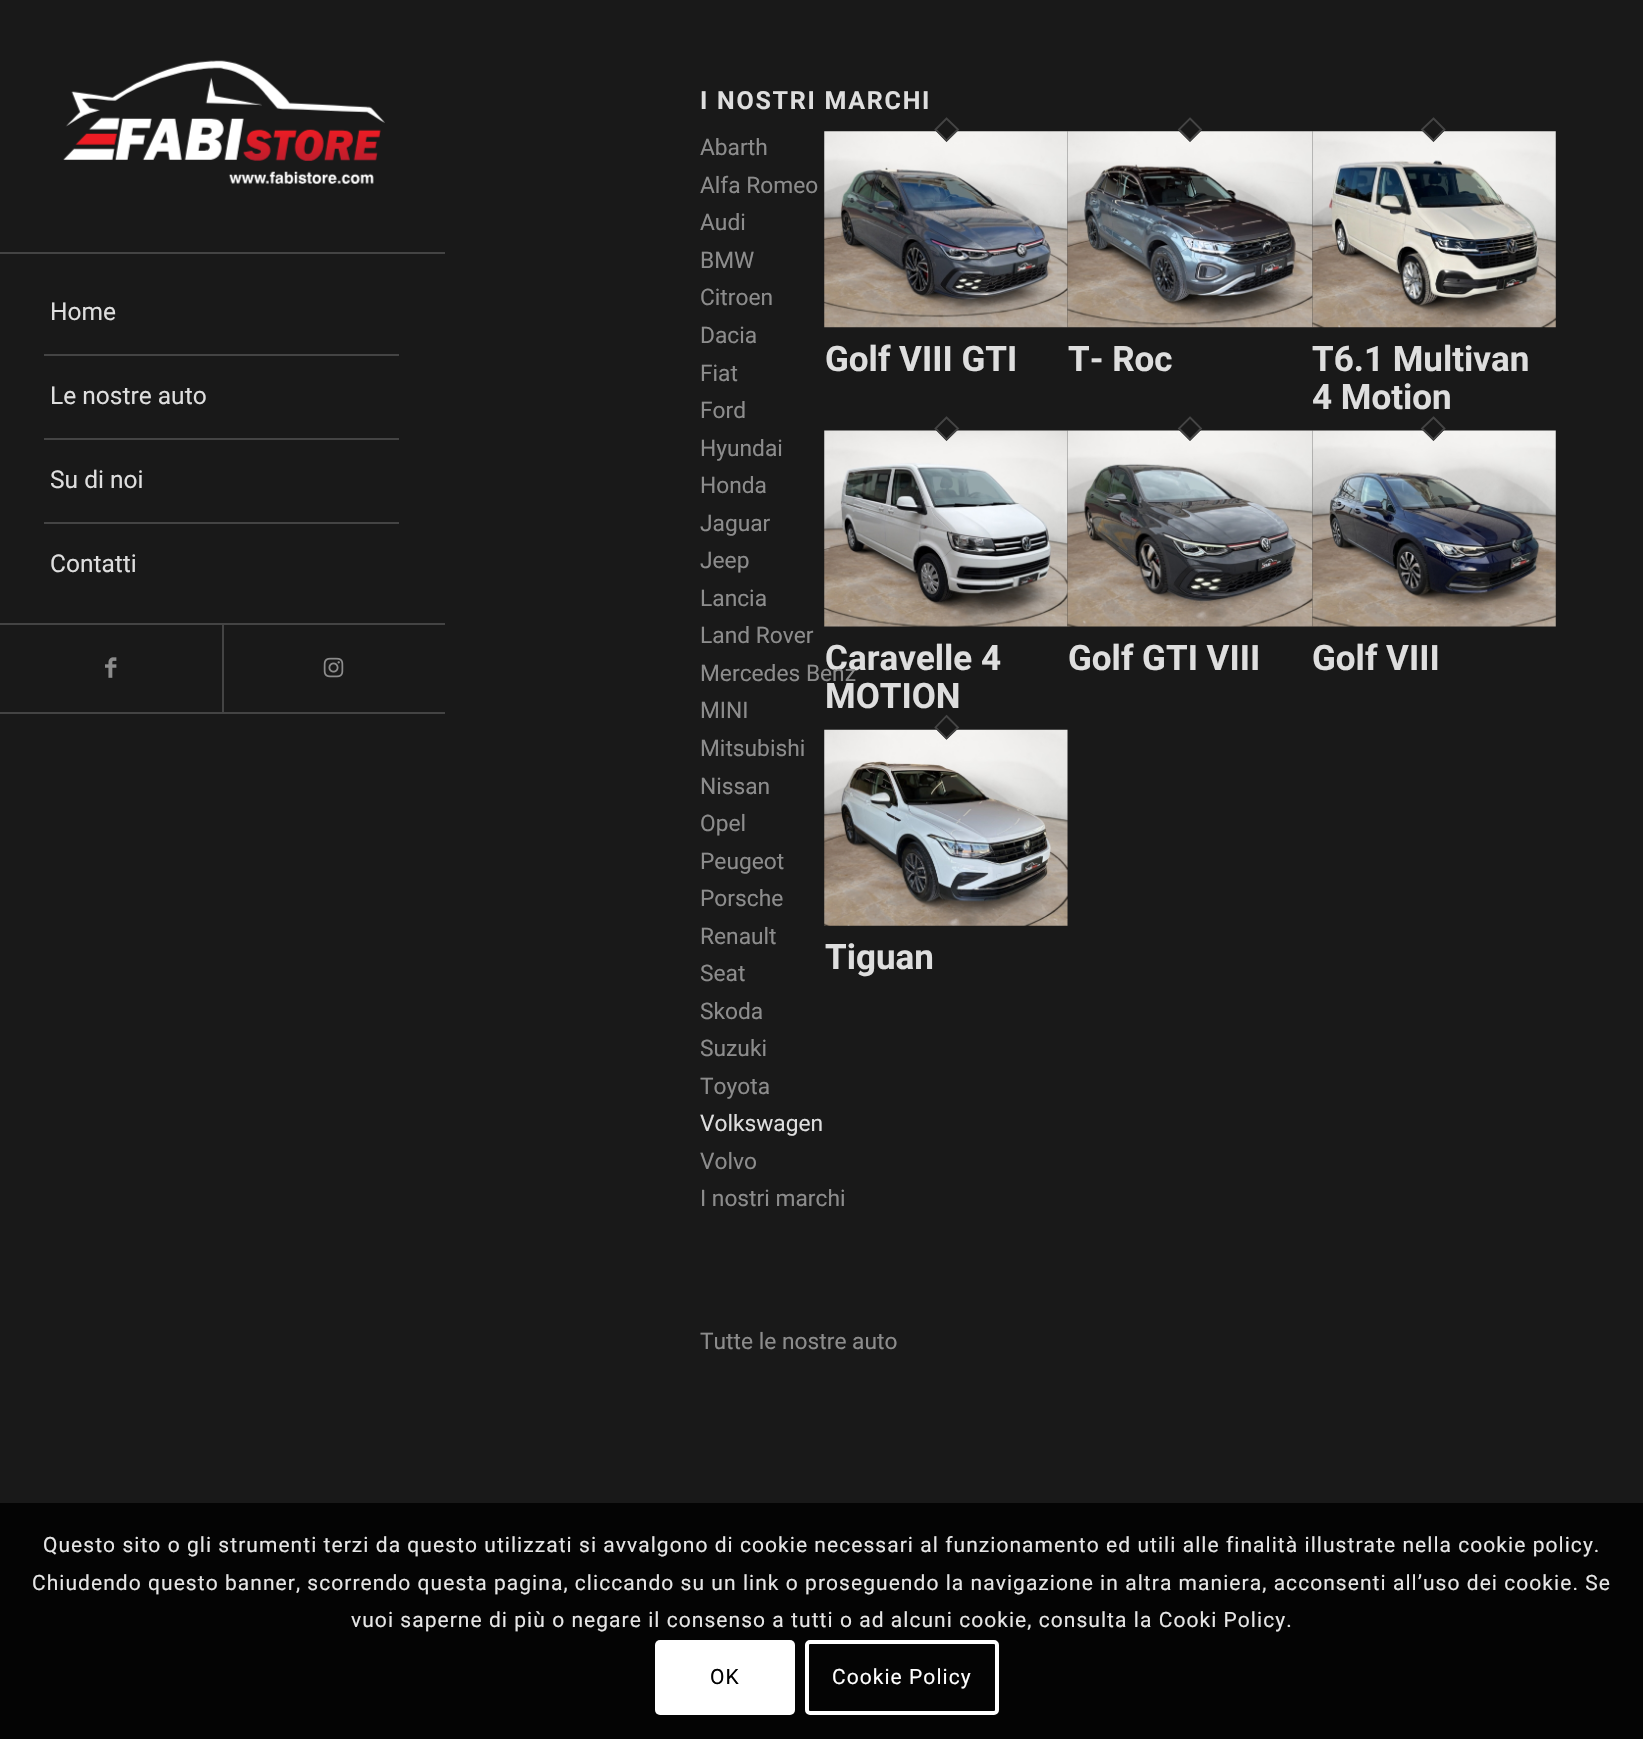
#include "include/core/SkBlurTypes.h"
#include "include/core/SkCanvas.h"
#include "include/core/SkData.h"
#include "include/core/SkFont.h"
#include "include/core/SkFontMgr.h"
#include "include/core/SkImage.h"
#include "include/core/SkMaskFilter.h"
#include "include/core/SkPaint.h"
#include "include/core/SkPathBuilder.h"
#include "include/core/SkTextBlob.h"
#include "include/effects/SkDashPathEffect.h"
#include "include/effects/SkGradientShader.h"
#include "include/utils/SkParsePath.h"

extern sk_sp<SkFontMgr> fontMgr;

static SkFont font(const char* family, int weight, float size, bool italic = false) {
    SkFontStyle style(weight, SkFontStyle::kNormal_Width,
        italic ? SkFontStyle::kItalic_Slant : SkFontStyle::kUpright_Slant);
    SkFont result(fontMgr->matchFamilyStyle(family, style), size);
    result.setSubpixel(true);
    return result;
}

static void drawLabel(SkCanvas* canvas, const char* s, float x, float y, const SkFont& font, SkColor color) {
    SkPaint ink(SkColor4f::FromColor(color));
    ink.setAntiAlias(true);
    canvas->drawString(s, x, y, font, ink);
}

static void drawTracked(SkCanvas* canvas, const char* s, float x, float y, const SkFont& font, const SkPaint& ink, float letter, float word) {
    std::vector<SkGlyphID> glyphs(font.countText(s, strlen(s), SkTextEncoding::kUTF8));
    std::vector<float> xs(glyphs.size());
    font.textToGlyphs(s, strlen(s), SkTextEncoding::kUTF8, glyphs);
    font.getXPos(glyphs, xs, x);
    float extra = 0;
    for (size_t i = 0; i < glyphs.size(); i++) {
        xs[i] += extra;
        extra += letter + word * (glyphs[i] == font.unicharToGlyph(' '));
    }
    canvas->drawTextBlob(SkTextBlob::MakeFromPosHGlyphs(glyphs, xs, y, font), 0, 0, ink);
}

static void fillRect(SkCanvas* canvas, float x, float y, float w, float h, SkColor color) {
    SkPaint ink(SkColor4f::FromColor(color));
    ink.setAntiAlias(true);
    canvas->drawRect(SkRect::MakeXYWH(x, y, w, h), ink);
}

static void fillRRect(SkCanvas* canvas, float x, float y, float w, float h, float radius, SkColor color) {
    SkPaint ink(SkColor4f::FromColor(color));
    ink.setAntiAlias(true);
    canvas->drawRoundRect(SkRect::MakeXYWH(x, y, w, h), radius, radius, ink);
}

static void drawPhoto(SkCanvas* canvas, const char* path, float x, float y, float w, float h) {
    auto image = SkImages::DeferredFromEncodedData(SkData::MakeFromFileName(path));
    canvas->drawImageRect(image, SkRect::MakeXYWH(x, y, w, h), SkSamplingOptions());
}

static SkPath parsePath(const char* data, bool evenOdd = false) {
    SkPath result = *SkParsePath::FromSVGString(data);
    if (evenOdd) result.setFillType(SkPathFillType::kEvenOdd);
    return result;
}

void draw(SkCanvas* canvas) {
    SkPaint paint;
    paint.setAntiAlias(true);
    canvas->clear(0xFF191919);
    fillRect(canvas, 0, 712, 445, 2, 0xFF444444);
    fillRect(canvas, 0, 252, 445, 2, 0xFF444444);
    drawPhoto(canvas, "assets/img1.png", 63, 60, 322, 124);
    fillRect(canvas, 44, 354, 355, 2, 0xFF444444);
    SkFont font1 = font("Roboto", 400, 24.5f);
    drawLabel(canvas, "Home", 50, 320, font1, 0xFFDEDEDE);
    fillRect(canvas, 44, 438, 355, 2, 0xFF444444);
    drawLabel(canvas, "Le nostre auto", 50, 404, font1, 0xFFDEDEDE);
    fillRect(canvas, 44, 522, 355, 2, 0xFF444444);
    drawLabel(canvas, "Su di noi", 50, 488, font1, 0xFFDEDEDE);
    drawLabel(canvas, "Contatti", 50, 572, font1, 0xFFDEDEDE);
    fillRect(canvas, 0, 623, 445, 2, 0xFF444444);
    drawPhoto(canvas, "assets/img2.png", 105, 657, 12, 21);
    fillRect(canvas, 222, 625, 2, 87, 0xFF444444);
    drawPhoto(canvas, "assets/img3.png", 323, 657, 21, 21);
    SkFont font2 = font("Roboto", 700, 25);
    paint.setColor(0xFFDEDEDE);
    drawTracked(canvas, "I NOSTRI MARCHI", 700, 109, font2, paint, 1.75f, 0);
    SkFont font3 = font("Roboto", 400, 22.75f);
    drawLabel(canvas, "Abarth", 700, 155, font3, 0xFF8C8C8C);
    drawLabel(canvas, "Alfa Romeo", 700, 193, font3, 0xFF8C8C8C);
    drawLabel(canvas, "Audi", 700, 230, font3, 0xFF8C8C8C);
    drawLabel(canvas, "BMW", 700, 268, font3, 0xFF8C8C8C);
    drawLabel(canvas, "Citroen", 700, 305, font3, 0xFF8C8C8C);
    drawLabel(canvas, "Dacia", 700, 343, font3, 0xFF8C8C8C);
    drawLabel(canvas, "Fiat", 700, 381, font3, 0xFF8C8C8C);
    drawLabel(canvas, "Ford", 700, 418, font3, 0xFF8C8C8C);
    drawLabel(canvas, "Hyundai", 700, 456, font3, 0xFF8C8C8C);
    drawLabel(canvas, "Honda", 700, 493, font3, 0xFF8C8C8C);
    drawLabel(canvas, "Jaguar", 700, 531, font3, 0xFF8C8C8C);
    drawLabel(canvas, "Jeep", 700, 568, font3, 0xFF8C8C8C);
    drawLabel(canvas, "Lancia", 700, 606, font3, 0xFF8C8C8C);
    drawLabel(canvas, "Land Rover", 700, 643, font3, 0xFF8C8C8C);
    SkFont font4 = font("Roboto", 700, 35);
    drawLabel(canvas, "Caravelle 4", 825, 670, font4, 0xFFDEDEDE);
    drawLabel(canvas, "Mercedes Benz", 700, 681, font3, 0xFF8C8C8C);
    drawLabel(canvas, "MINI", 700, 718, font3, 0xFF8C8C8C);
    drawLabel(canvas, "Mitsubishi", 700, 756, font3, 0xFF8C8C8C);
    drawLabel(canvas, "Nissan", 700, 794, font3, 0xFF8C8C8C);
    drawLabel(canvas, "Opel", 700, 831, font3, 0xFF8C8C8C);
    drawLabel(canvas, "Peugeot", 700, 869, font3, 0xFF8C8C8C);
    drawLabel(canvas, "Porsche", 700, 906, font3, 0xFF8C8C8C);
    drawLabel(canvas, "Renault", 700, 944, font3, 0xFF8C8C8C);
    drawLabel(canvas, "Seat", 700, 981, font3, 0xFF8C8C8C);
    drawLabel(canvas, "Skoda", 700, 1019, font3, 0xFF8C8C8C);
    drawLabel(canvas, "Suzuki", 700, 1056, font3, 0xFF8C8C8C);
    drawLabel(canvas, "Toyota", 700, 1094, font3, 0xFF8C8C8C);
    drawLabel(canvas, "Volkswagen", 700, 1131, font3, 0xFFDEDEDE);
    drawLabel(canvas, "Volvo", 700, 1169, font3, 0xFF8C8C8C);
    drawLabel(canvas, "I nostri marchi", 700, 1206, font3, 0xFF8C8C8C);
    drawLabel(canvas, "Tutte le nostre auto", 700, 1349, font3, 0xFF8C8C8C);
    drawPhoto(canvas, "assets/img4.png", 824, 131, 244, 197);
    paint.setColor(0xFF191919);
    canvas->drawPath(parsePath("M946.5 117L959 129.5L946.5 142L934.5 129.5Z"), paint);
    paint.setStroke(true);
    paint.setStrokeWidth(1.8f);
    paint.setColor(0xFF444444);
    canvas->drawPath(parsePath("M946.5 118.5L958 129.5L946.5 140.5L935.5 129.5Z"), paint);
    drawLabel(canvas, "Golf VIII GTI", 825, 371, font4, 0xFFDEDEDE);
    drawPhoto(canvas, "assets/img5.png", 1067, 131, 246, 197);
    paint.setStroke(false);
    paint.setColor(0xFF191919);
    canvas->drawPath(parsePath("M1190 117L1202.5 129.5L1190 142L1177.5 129.5Z"), paint);
    paint.setStroke(true);
    paint.setColor(0xFF444444);
    canvas->drawPath(parsePath("M1190 118.5L1201 129.5L1190 140.5L1179 129.5Z"), paint);
    drawLabel(canvas, "T- Roc", 1068, 371, font4, 0xFFDEDEDE);
    drawPhoto(canvas, "assets/img6.png", 1312, 131, 244, 197);
    paint.setStroke(false);
    paint.setColor(0xFF191919);
    canvas->drawPath(parsePath("M1433.5 117L1445.5 129.5L1433.5 142L1421 129.5Z"), paint);
    paint.setStroke(true);
    paint.setColor(0xFF444444);
    canvas->drawPath(parsePath("M1433.5 118.5L1444.5 129.5L1433.5 140.5L1422 129.5Z"), paint);
    drawLabel(canvas, "T6.1 Multivan", 1312, 371, font4, 0xFFDEDEDE);
    drawLabel(canvas, "4 Motion", 1312, 409, font4, 0xFFDEDEDE);
    drawPhoto(canvas, "assets/img7.png", 824, 430, 244, 197);
    paint.setStroke(false);
    paint.setColor(0xFF191919);
    canvas->drawPath(parsePath("M946.5 416L959 428.5L946.5 441L934.5 428.5Z"), paint);
    paint.setStroke(true);
    paint.setColor(0xFF444444);
    canvas->drawPath(parsePath("M946.5 417.5L958 428.5L946.5 439.5L935.5 428.5Z"), paint);
    drawLabel(canvas, "MOTION", 825, 708, font4, 0xFFDEDEDE);
    drawPhoto(canvas, "assets/img8.png", 1067, 430, 246, 197);
    paint.setStroke(false);
    paint.setColor(0xFF191919);
    canvas->drawPath(parsePath("M1190 416L1202.5 428.5L1190 441L1177.5 428.5Z"), paint);
    paint.setStroke(true);
    paint.setColor(0xFF444444);
    canvas->drawPath(parsePath("M1190 417.5L1201 428.5L1190 439.5L1179 428.5Z"), paint);
    drawLabel(canvas, "Golf GTI VIII", 1068, 670, font4, 0xFFDEDEDE);
    drawPhoto(canvas, "assets/img9.png", 1312, 430, 244, 197);
    paint.setStroke(false);
    paint.setColor(0xFF191919);
    canvas->drawPath(parsePath("M1433.5 416L1445.5 428.5L1433.5 441L1421 428.5Z"), paint);
    paint.setStroke(true);
    paint.setColor(0xFF444444);
    canvas->drawPath(parsePath("M1433.5 417.5L1444.5 428.5L1433.5 439.5L1422 428.5Z"), paint);
    drawLabel(canvas, "Golf VIII", 1312, 670, font4, 0xFFDEDEDE);
    drawPhoto(canvas, "assets/img10.png", 824, 729, 244, 197);
    paint.setStroke(false);
    paint.setColor(0xFF191919);
    canvas->drawPath(parsePath("M946.5 715L959 727.5L946.5 739.5L934.5 727.5Z"), paint);
    paint.setStroke(true);
    paint.setColor(0xFF444444);
    canvas->drawPath(parsePath("M946.5 716L958 727.5L946.5 738.5L935.5 727.5Z"), paint);
    drawLabel(canvas, "Tiguan", 825, 969, font4, 0xFFDEDEDE);
    fillRect(canvas, 0, 1503, 1643, 236, 0xFF040404);
    SkFont font5 = font("Roboto", 400, 21);
    paint.setStroke(false);
    paint.setColor(0xFFE6E6E6);
    drawTracked(canvas, "Questo sito o gli strumenti terzi da questo utilizzati si avvalgono di cookie necessari al funzionamento ed utili alle finalità illustrate nella cookie policy.", 43, 1552, font5, paint, 1.05f, 0);
    drawTracked(canvas, "Chiudendo questo banner, scorrendo questa pagina, cliccando su un link o proseguendo la navigazione in altra maniera, acconsenti all’uso dei cookie. Se", 32, 1590, font5, paint, 1.05f, 0);
    drawTracked(canvas, "vuoi saperne di più o negare il consenso a tutti o ad alcuni cookie, consulta la Cooki Policy.", 351, 1627, font5, paint, 1.05f, 0);
    fillRRect(canvas, 655, 1640, 140, 75, 5, 0xFFFFFFFF);
    paint.setColor(0xFF000000);
    drawTracked(canvas, "OK", 710, 1684, font5, paint, 1.05f, 0);
    paint.setStroke(true);
    paint.setStrokeWidth(4);
    paint.setColor(0xFFFFFFFF);
    canvas->drawRoundRect(SkRect::MakeXYWH(807, 1642, 190, 71), 3, 3, paint);
    paint.setStroke(false);
    drawTracked(canvas, "Cookie Policy", 832, 1684, font5, paint, 1.05f, 0);
}
